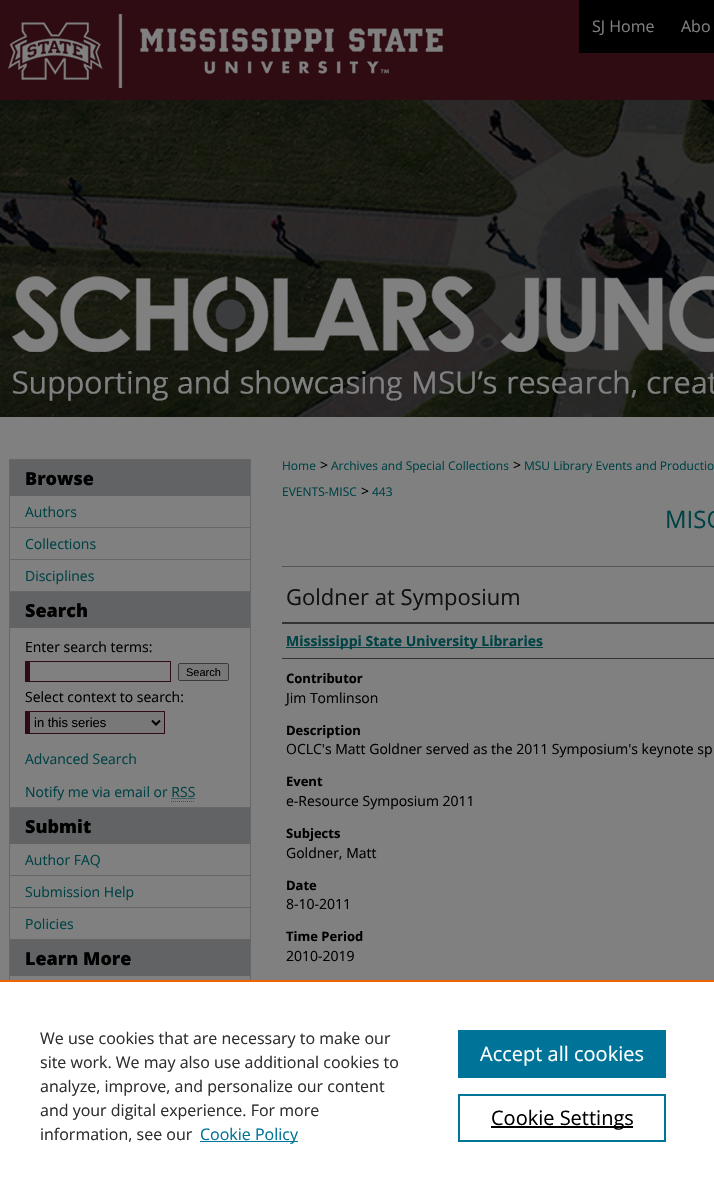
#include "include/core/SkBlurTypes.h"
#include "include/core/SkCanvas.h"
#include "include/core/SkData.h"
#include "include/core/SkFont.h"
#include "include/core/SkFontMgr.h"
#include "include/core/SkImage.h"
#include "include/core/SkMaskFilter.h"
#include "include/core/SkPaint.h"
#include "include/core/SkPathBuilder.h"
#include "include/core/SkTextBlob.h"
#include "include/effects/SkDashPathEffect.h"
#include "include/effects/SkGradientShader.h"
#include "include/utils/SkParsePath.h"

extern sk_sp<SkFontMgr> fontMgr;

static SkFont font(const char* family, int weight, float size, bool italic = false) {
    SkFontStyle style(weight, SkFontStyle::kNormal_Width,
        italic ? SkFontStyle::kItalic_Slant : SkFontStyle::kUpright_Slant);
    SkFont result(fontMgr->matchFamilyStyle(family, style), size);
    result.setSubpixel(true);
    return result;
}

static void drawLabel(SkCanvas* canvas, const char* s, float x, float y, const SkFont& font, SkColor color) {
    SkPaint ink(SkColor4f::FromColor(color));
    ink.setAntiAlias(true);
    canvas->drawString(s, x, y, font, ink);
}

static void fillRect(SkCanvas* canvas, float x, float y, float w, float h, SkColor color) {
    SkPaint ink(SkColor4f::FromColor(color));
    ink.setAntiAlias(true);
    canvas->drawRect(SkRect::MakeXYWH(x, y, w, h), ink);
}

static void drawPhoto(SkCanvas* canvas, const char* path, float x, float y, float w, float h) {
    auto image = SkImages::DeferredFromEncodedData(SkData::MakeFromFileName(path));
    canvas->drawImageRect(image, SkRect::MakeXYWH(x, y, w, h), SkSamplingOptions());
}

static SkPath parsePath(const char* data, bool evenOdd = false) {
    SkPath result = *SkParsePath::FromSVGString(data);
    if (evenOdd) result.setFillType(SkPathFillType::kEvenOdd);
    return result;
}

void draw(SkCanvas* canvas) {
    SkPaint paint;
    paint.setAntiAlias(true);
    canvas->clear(0xFF808080);
    fillRect(canvas, 0, 0, 579, 14, 0xFF2F0C13);
    drawPhoto(canvas, "assets/img1.png", 0, 14, 714, 403);
    fillRect(canvas, 579, 0, 135, 53, 0xFF000000);
    SkFont font1 = font("Open Sans", 400, 16);
    drawLabel(canvas, "SJ Home", 592, 32, font1, 0xFF808080);
    drawLabel(canvas, "Abo", 681, 32, font1, 0xFF808080);
    fillRect(canvas, 10, 460, 240, 36, 0xFF616364);
    fillRect(canvas, 10, 527, 240, 1, 0xFF676767);
    fillRect(canvas, 10, 559, 240, 1, 0xFF676767);
    fillRect(canvas, 10, 591, 240, 1, 0xFF676767);
    fillRect(canvas, 10, 592, 240, 36, 0xFF616364);
    fillRect(canvas, 10, 807, 240, 1, 0xFF676767);
    paint.setStroke(true);
    paint.setStrokeWidth(1);
    paint.setColor(0xFF004245);
    paint.setPathEffect(SkDashPathEffect::Make({{1, 1}}, 0));
    canvas->drawPath(parsePath("M171.5 798.5H195.5"), paint);
    paint.setPathEffect(nullptr);
    paint.setColor(0xFF4D4D4D);
    paint.setPathEffect(SkDashPathEffect::Make({{1, 1}}, 0));
    canvas->drawPath(parsePath("M171 801.5H195"), paint);
    paint.setPathEffect(nullptr);
    fillRect(canvas, 10, 808, 240, 36, 0xFF616364);
    fillRect(canvas, 10, 875, 240, 1, 0xFF676767);
    fillRect(canvas, 10, 907, 240, 1, 0xFF676767);
    fillRect(canvas, 10, 939, 240, 1, 0xFF676767);
    fillRect(canvas, 10, 940, 240, 36, 0xFF616364);
    paint.setColor(0xFF676767);
    canvas->drawRect(SkRect::MakeXYWH(9.5f, 459.5f, 241, 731), paint);
    SkFont font2 = font("Open Sans", 800, 18);
    drawLabel(canvas, "Browse", 25, 485, font2, 0xFF000000);
    SkFont font3 = font("Open Sans", 400, 14);
    drawLabel(canvas, "Authors", 25, 517, font3, 0xFF004245);
    drawLabel(canvas, "Collections", 25, 549, font3, 0xFF004245);
    drawLabel(canvas, "Disciplines", 25, 581, font3, 0xFF004245);
    drawLabel(canvas, "Search", 25, 617, font2, 0xFF000000);
    drawLabel(canvas, "Enter search terms:", 25, 652, font3, 0xFF000000);
    fillRect(canvas, 25, 661, 146, 1, 0xFF2F0C13);
    fillRect(canvas, 170, 661, 1, 21, 0xFF2F0C13);
    fillRect(canvas, 25, 681, 146, 1, 0xFF2F0C13);
    fillRect(canvas, 25, 661, 5, 21, 0xFF2F0C13);
    paint.setStroke(false);
    paint.setColor(0xFF787878);
    canvas->drawRoundRect(SkRect::MakeXYWH(178.5f, 663.5f, 50, 17), 1.5f, 1.5f, paint);
    paint.setStroke(true);
    paint.setColor(0xFF3B3B3B);
    canvas->drawRoundRect(SkRect::MakeXYWH(178.5f, 663.5f, 50, 17), 1.5f, 1.5f, paint);
    SkFont font4 = font("Liberation Sans", 400, 11);
    drawLabel(canvas, "Search", 186, 676, font4, 0xFF000000);
    drawLabel(canvas, "Select context to search:", 25, 702, font3, 0xFF000000);
    fillRect(canvas, 30, 712, 134, 21, 0xFF787878);
    fillRect(canvas, 25, 711, 140, 1, 0xFF2F0C13);
    fillRect(canvas, 164, 711, 1, 23, 0xFF2F0C13);
    fillRect(canvas, 25, 733, 140, 1, 0xFF2F0C13);
    fillRect(canvas, 25, 711, 5, 23, 0xFF2F0C13);
    paint.setStrokeWidth(2);
    paint.setColor(0xFF000000);
    canvas->drawPath(parsePath("M152 720.5L156 724.5L160 720.5"), paint);
    SkFont font5 = font("Liberation Sans", 400, 13);
    drawLabel(canvas, "in this series", 34, 727, font5, 0xFF000000);
    drawLabel(canvas, "Advanced Search", 25, 764, font3, 0xFF004245);
    drawLabel(canvas, "Notify me via email or RSS", 25, 797, font3, 0xFF004245);
    drawLabel(canvas, "Submit", 25, 833, font2, 0xFF000000);
    drawLabel(canvas, "Author FAQ", 25, 865, font3, 0xFF004245);
    drawLabel(canvas, "Submission Help", 25, 897, font3, 0xFF004245);
    drawLabel(canvas, "Policies", 25, 929, font3, 0xFF004245);
    drawLabel(canvas, "Learn More", 25, 965, font2, 0xFF000000);
    SkFont font6 = font("Open Sans", 400, 12);
    drawLabel(canvas, "Home", 282, 470, font6, 0xFF004245);
    drawLabel(canvas, ">", 320, 470, font3, 0xFF000000);
    drawLabel(canvas, "Archives and Special Collections", 331, 470, font6, 0xFF004245);
    drawLabel(canvas, ">", 513, 470, font3, 0xFF000000);
    drawLabel(canvas, "MSU Library Events and Productio", 524, 470, font6, 0xFF004245);
    drawLabel(canvas, "EVENTS-MISC", 282, 496, font6, 0xFF004245);
    drawLabel(canvas, ">", 361, 496, font3, 0xFF000000);
    drawLabel(canvas, "443", 372, 496, font6, 0xFF004245);
    SkFont font7 = font("Open Sans", 400, 24);
    drawLabel(canvas, "MISC", 665, 528, font7, 0xFF004245);
    fillRect(canvas, 282, 566, 432, 1, 0xFF555555);
    SkFont font8 = font("Open Sans", 400, 22);
    drawLabel(canvas, "Goldner at Symposium", 286, 605, font8, 0xFF111111);
    fillRect(canvas, 282, 622, 432, 2, 0xFF333333);
    fillRect(canvas, 282, 658, 432, 1, 0xFF333333);
    fillRect(canvas, 286, 647, 257, 1, 0xFF004245);
    SkFont font9 = font("Open Sans", 700, 14);
    drawLabel(canvas, "Mississippi State University Libraries", 286, 646, font9, 0xFF004245);
    SkFont font10 = font("Open Sans", 700, 13);
    drawLabel(canvas, "Contributor", 286, 683, font10, 0xFF000000);
    drawLabel(canvas, "Jim Tomlinson", 286, 703, font3, 0xFF000000);
    drawLabel(canvas, "Description", 286, 735, font10, 0xFF000000);
    drawLabel(canvas, "OCLC's Matt Goldner served as the 2011 Symposium's keynote sp", 286, 754, font3, 0xFF000000);
    drawLabel(canvas, "Event", 286, 786, font10, 0xFF000000);
    drawLabel(canvas, "e-Resource Symposium 2011", 286, 806, font3, 0xFF000000);
    drawLabel(canvas, "Subjects", 286, 838, font10, 0xFF000000);
    drawLabel(canvas, "Goldner, Matt", 286, 858, font3, 0xFF000000);
    drawLabel(canvas, "Date", 286, 890, font10, 0xFF000000);
    drawLabel(canvas, "8-10-2011", 286, 909, font3, 0xFF000000);
    drawLabel(canvas, "Time Period", 286, 941, font10, 0xFF000000);
    drawLabel(canvas, "2010-2019", 286, 961, font3, 0xFF000000);
    fillRect(canvas, 0, 982, 714, 208, 0xFFFFFFFF);
    fillRect(canvas, 0, 980, 714, 2, 0xFFEB6500);
    drawLabel(canvas, "We use cookies that are necessary to make our", 40, 1044, font1, 0xFF2E2E2E);
    drawLabel(canvas, "site work. We may also use additional cookies to", 40, 1068, font1, 0xFF2E2E2E);
    drawLabel(canvas, "analyze, improve, and personalize our content", 40, 1092, font1, 0xFF2E2E2E);
    drawLabel(canvas, "and your digital experience. For more", 40, 1116, font1, 0xFF2E2E2E);
    drawLabel(canvas, "information, see our", 40, 1140, font1, 0xFF2E2E2E);
    fillRect(canvas, 200, 1141, 98, 1, 0xFF007398);
    drawLabel(canvas, "Cookie Policy", 200, 1140, font1, 0xFF007398);
    fillRect(canvas, 458, 1030, 208, 48, 0xFF007398);
    SkFont font11 = font("Open Sans", 400, 20);
    drawLabel(canvas, "Accept all cookies", 480, 1061, font11, 0xFFFFFFFF);
    paint.setColor(0xFF007398);
    canvas->drawRect(SkRect::MakeXYWH(459, 1095, 206, 46), paint);
    fillRect(canvas, 491, 1126, 142, 2, 0xFF000000);
    drawLabel(canvas, "Cookie Settings", 491, 1125, font11, 0xFF000000);
}
